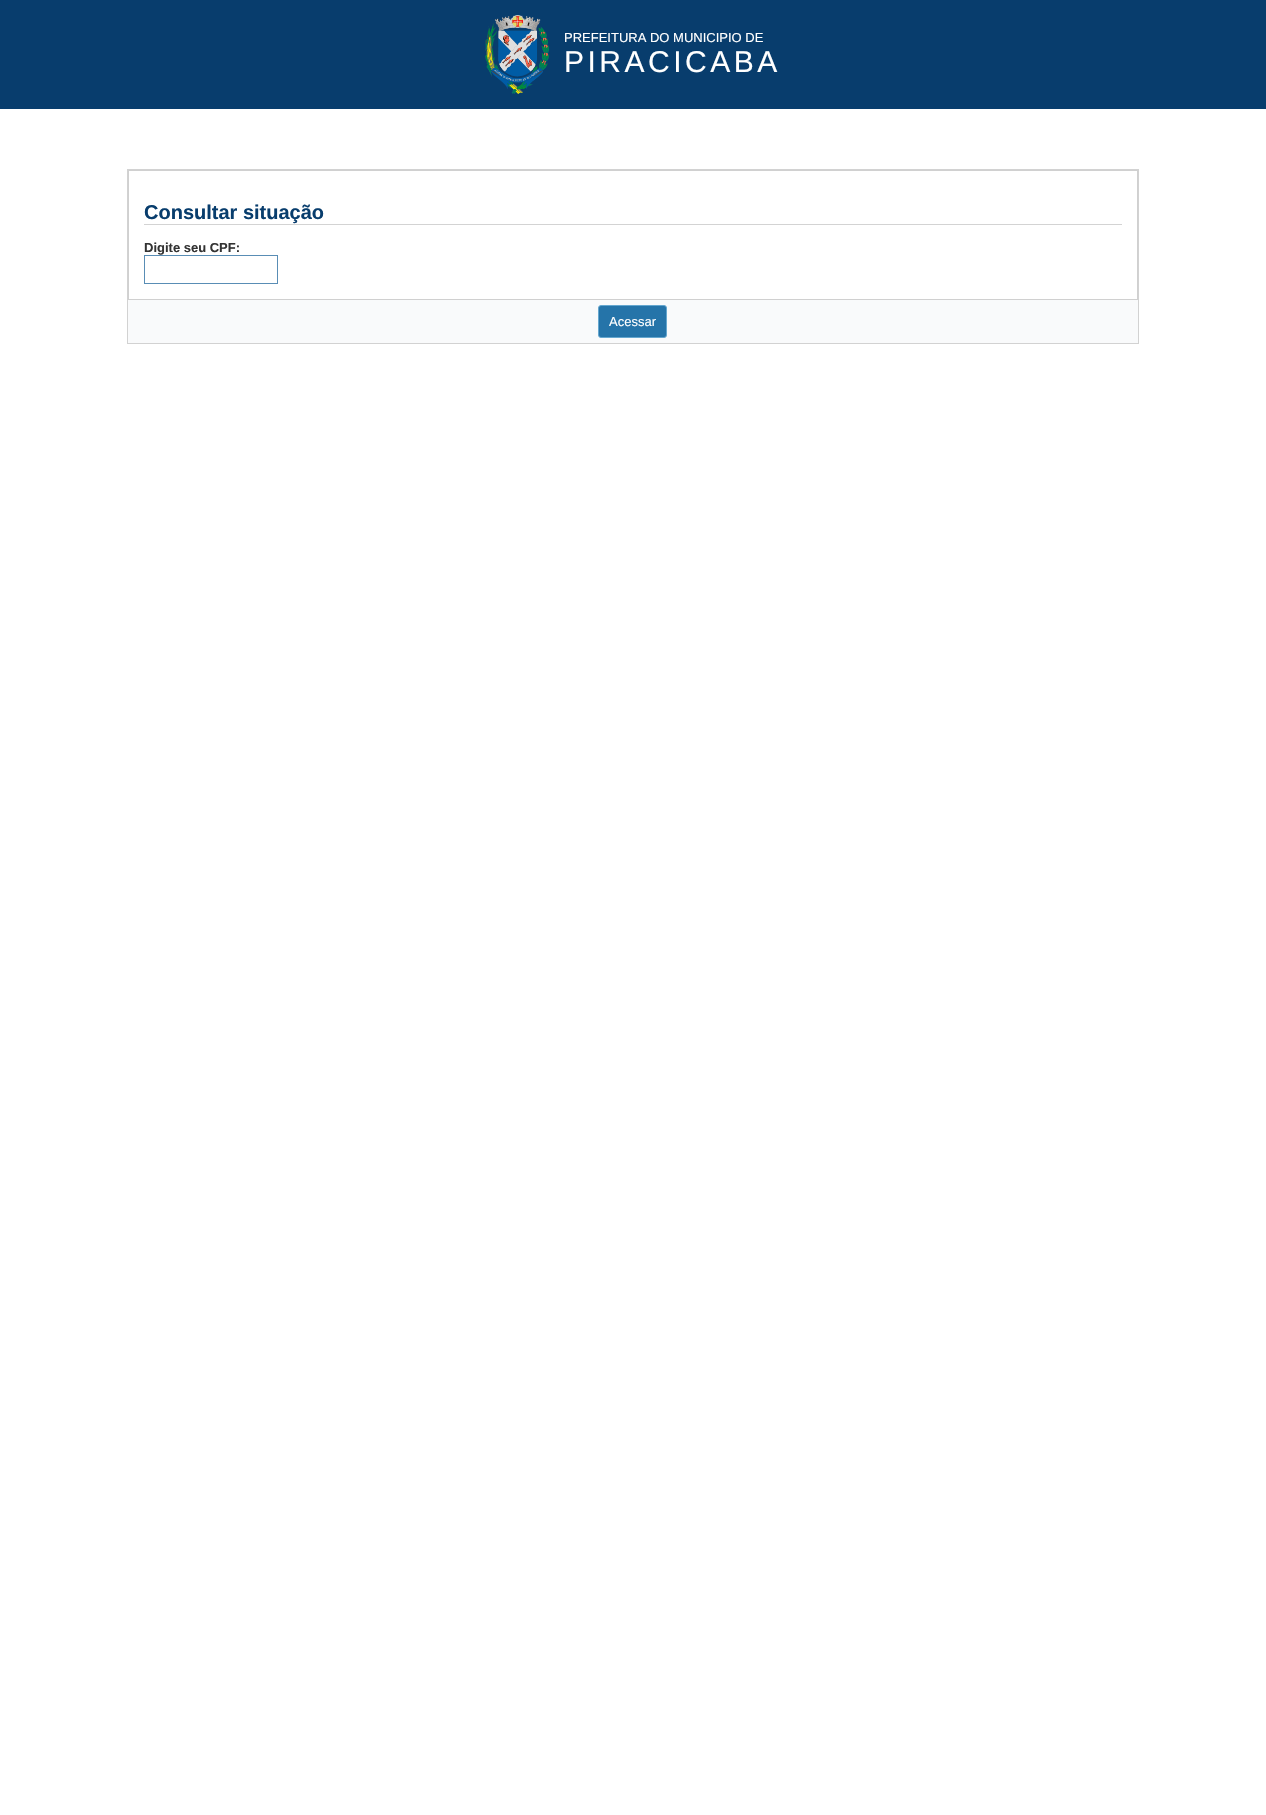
#include "include/core/SkBlurTypes.h"
#include "include/core/SkCanvas.h"
#include "include/core/SkData.h"
#include "include/core/SkFont.h"
#include "include/core/SkFontMgr.h"
#include "include/core/SkImage.h"
#include "include/core/SkMaskFilter.h"
#include "include/core/SkPaint.h"
#include "include/core/SkPathBuilder.h"
#include "include/core/SkTextBlob.h"
#include "include/effects/SkDashPathEffect.h"
#include "include/effects/SkGradientShader.h"
#include "include/utils/SkParsePath.h"

extern sk_sp<SkFontMgr> fontMgr;

static SkFont font(const char* family, int weight, float size, bool italic = false) {
    SkFontStyle style(weight, SkFontStyle::kNormal_Width,
        italic ? SkFontStyle::kItalic_Slant : SkFontStyle::kUpright_Slant);
    SkFont result(fontMgr->matchFamilyStyle(family, style), size);
    result.setSubpixel(true);
    return result;
}

static void drawLabel(SkCanvas* canvas, const char* s, float x, float y, const SkFont& font, SkColor color) {
    SkPaint ink(SkColor4f::FromColor(color));
    ink.setAntiAlias(true);
    canvas->drawString(s, x, y, font, ink);
}

static void drawTracked(SkCanvas* canvas, const char* s, float x, float y, const SkFont& font, const SkPaint& ink, float letter, float word) {
    std::vector<SkGlyphID> glyphs(font.countText(s, strlen(s), SkTextEncoding::kUTF8));
    std::vector<float> xs(glyphs.size());
    font.textToGlyphs(s, strlen(s), SkTextEncoding::kUTF8, glyphs);
    font.getXPos(glyphs, xs, x);
    float extra = 0;
    for (size_t i = 0; i < glyphs.size(); i++) {
        xs[i] += extra;
        extra += letter + word * (glyphs[i] == font.unicharToGlyph(' '));
    }
    canvas->drawTextBlob(SkTextBlob::MakeFromPosHGlyphs(glyphs, xs, y, font), 0, 0, ink);
}

static void fillRect(SkCanvas* canvas, float x, float y, float w, float h, SkColor color) {
    SkPaint ink(SkColor4f::FromColor(color));
    ink.setAntiAlias(true);
    canvas->drawRect(SkRect::MakeXYWH(x, y, w, h), ink);
}

static void drawPhoto(SkCanvas* canvas, const char* path, float x, float y, float w, float h) {
    auto image = SkImages::DeferredFromEncodedData(SkData::MakeFromFileName(path));
    canvas->drawImageRect(image, SkRect::MakeXYWH(x, y, w, h), SkSamplingOptions());
}

void draw(SkCanvas* canvas) {
    SkPaint paint;
    paint.setAntiAlias(true);
    canvas->clear(0xFFFFFFFF);
    fillRect(canvas, 0, 0, 1266, 109, 0xFF083D6D);
    drawPhoto(canvas, "assets/img1.png", 485, 15, 64, 79);
    SkFont font1 = font("Liberation Sans", 400, 13);
    drawLabel(canvas, "PREFEITURA DO MUNICIPIO DE", 564, 42, font1, 0xFFFFFFFF);
    SkFont font2 = font("Liberation Sans", 400, 30);
    paint.setColor(0xFFFFFFFF);
    drawTracked(canvas, "PIRACICABA", 564, 72, font2, paint, 3.5f, 0);
    fillRect(canvas, 128, 300, 1010, 43, 0xFFF9FAFB);
    paint.setStroke(true);
    paint.setStrokeWidth(1);
    paint.setColor(0xFFD2D2D2);
    canvas->drawRect(SkRect::MakeXYWH(127.5f, 169.5f, 1011, 174), paint);
    fillRect(canvas, 128, 170, 1010, 1, 0xFFD0D0D0);
    fillRect(canvas, 1137, 170, 1, 130, 0xFFD0D0D0);
    fillRect(canvas, 128, 299, 1010, 1, 0xFFD0D0D0);
    fillRect(canvas, 128, 170, 1, 130, 0xFFD0D0D0);
    fillRect(canvas, 144, 224, 978, 1, 0xFFD3D3D3);
    SkFont font3 = font("Liberation Sans", 700, 20);
    drawLabel(canvas, "Consultar situação", 144, 219, font3, 0xFF083D6D);
    SkFont font4 = font("Liberation Sans", 700, 13);
    drawLabel(canvas, "Digite seu CPF:", 144, 252, font4, 0xFF333333);
    paint.setColor(0xFF598DB5);
    canvas->drawRect(SkRect::MakeXYWH(144.5f, 255.5f, 133, 28), paint);
    paint.setStroke(false);
    paint.setColor(0xFF2574A9);
    canvas->drawRoundRect(SkRect::MakeXYWH(598.5f, 305.5f, 68, 32), 2.5f, 2.5f, paint);
    paint.setStroke(true);
    paint.setColor(0xFF65A7CF);
    canvas->drawRoundRect(SkRect::MakeXYWH(598.5f, 305.5f, 68, 32), 2.5f, 2.5f, paint);
    drawLabel(canvas, "Acessar", 609, 326, font1, 0xFFFFFFFF);
}
